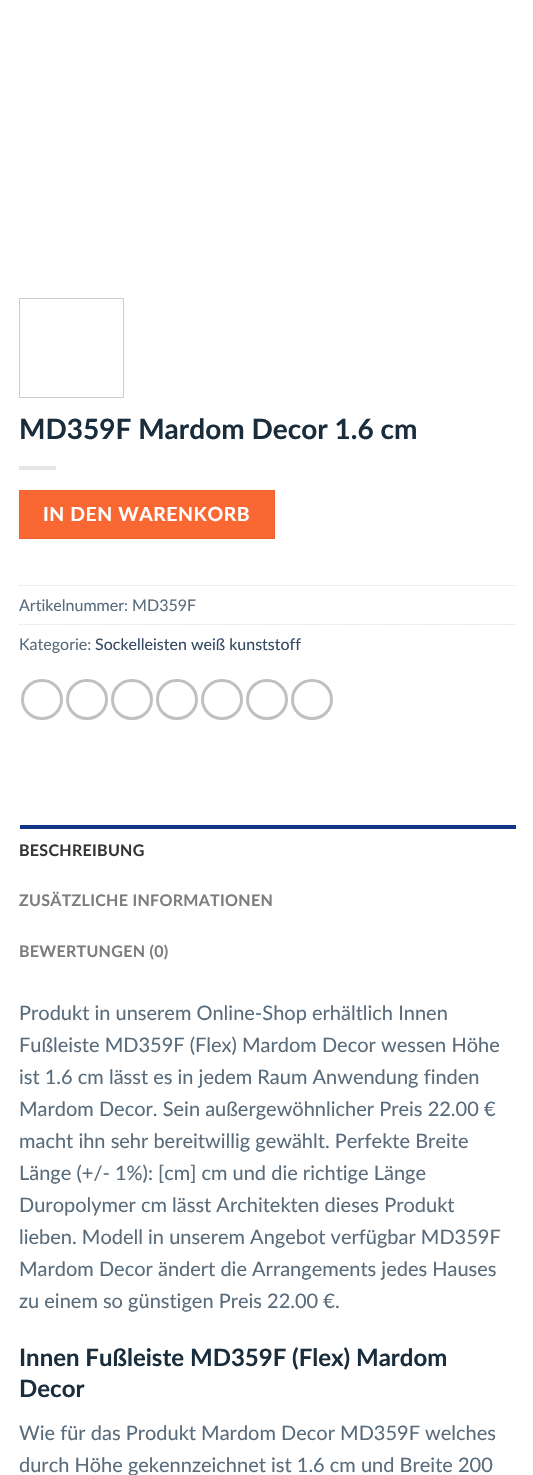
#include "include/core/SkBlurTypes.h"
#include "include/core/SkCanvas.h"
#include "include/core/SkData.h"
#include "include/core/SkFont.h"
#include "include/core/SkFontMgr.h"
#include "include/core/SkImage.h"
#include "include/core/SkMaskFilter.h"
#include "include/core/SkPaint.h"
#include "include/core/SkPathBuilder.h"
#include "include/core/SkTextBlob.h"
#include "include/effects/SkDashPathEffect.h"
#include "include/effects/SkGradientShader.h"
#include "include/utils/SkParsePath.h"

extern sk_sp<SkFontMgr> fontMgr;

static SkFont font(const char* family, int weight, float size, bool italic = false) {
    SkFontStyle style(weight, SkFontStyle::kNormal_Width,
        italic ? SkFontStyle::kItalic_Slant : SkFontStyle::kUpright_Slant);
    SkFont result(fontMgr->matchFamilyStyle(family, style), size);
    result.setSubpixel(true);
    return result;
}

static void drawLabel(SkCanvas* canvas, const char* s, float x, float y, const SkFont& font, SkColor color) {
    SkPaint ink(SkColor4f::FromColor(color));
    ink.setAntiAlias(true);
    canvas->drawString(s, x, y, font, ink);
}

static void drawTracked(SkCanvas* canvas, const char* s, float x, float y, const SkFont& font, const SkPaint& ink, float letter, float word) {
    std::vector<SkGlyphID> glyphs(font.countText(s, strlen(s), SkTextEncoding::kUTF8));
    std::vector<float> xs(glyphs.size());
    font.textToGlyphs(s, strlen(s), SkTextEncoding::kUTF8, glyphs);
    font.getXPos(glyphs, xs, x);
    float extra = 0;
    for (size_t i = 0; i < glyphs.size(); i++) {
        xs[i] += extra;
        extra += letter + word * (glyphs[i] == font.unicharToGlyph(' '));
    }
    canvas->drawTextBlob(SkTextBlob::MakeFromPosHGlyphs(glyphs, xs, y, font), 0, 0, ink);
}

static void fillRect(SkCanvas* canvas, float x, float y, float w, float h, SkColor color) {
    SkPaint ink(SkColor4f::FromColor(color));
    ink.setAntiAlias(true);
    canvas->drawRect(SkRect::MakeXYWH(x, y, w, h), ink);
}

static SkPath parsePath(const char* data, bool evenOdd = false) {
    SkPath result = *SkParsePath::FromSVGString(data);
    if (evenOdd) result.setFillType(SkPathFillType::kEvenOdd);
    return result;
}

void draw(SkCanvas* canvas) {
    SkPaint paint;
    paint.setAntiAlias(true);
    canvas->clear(0xFFFFFFFF);
    paint.setStroke(true);
    paint.setStrokeWidth(1);
    paint.setColor(0xFFCCCCCC);
    canvas->drawRect(SkRect::MakeXYWH(19.5f, 298.5f, 104, 99), paint);
    SkFont font1 = font("Lato", 700, 28);
    drawLabel(canvas, "MD359F Mardom Decor 1.6 cm", 19, 439, font1, 0xFF1A2D3C);
    fillRect(canvas, 19, 466, 37, 4, 0xFFE6E6E6);
    paint.setStroke(false);
    paint.setColor(0xFFF96833);
    canvas->drawRect(SkRect::MakeXYWH(19.5f, 490.5f, 255, 48), paint);
    paint.setStroke(true);
    paint.setColor(0xFFED6330);
    canvas->drawRect(SkRect::MakeXYWH(19.5f, 490.5f, 255, 48), paint);
    SkFont font2 = font("Lato", 700, 19.4f);
    paint.setStroke(false);
    paint.setColor(0xFFFFFFFF);
    drawTracked(canvas, "IN DEN WARENKORB", 43, 521, font2, paint, 0.6f, 0);
    paint.setStroke(true);
    paint.setStrokeWidth(1.2f);
    paint.setColor(0xFFDDDDDD);
    paint.setPathEffect(SkDashPathEffect::Make({{1.25f, 1.25f}}, 0));
    canvas->drawPath(parsePath("M19 585.5H515"), paint);
    paint.setPathEffect(nullptr);
    SkFont font3 = font("Lato", 400, 16);
    drawLabel(canvas, "Artikelnummer: MD359F", 19, 611, font3, 0xFF596C7C);
    paint.setPathEffect(SkDashPathEffect::Make({{1.25f, 1.25f}}, 0));
    canvas->drawPath(parsePath("M19 624.5H515"), paint);
    paint.setPathEffect(nullptr);
    drawLabel(canvas, "Kategorie:", 19, 650, font3, 0xFF596C7C);
    drawLabel(canvas, "Sockelleisten weiß kunststoff", 95, 650, font3, 0xFF334862);
    paint.setStrokeWidth(3);
    paint.setColor(0xFFC0C0C0);
    canvas->drawRoundRect(SkRect::MakeXYWH(22.5f, 680.5f, 39, 38), 19, 19, paint);
    canvas->drawRoundRect(SkRect::MakeXYWH(67.5f, 680.5f, 39, 38), 19, 19, paint);
    canvas->drawRoundRect(SkRect::MakeXYWH(112.5f, 680.5f, 39, 38), 19, 19, paint);
    canvas->drawRoundRect(SkRect::MakeXYWH(157.5f, 680.5f, 39, 38), 19, 19, paint);
    canvas->drawRoundRect(SkRect::MakeXYWH(202.5f, 680.5f, 39, 38), 19, 19, paint);
    canvas->drawRoundRect(SkRect::MakeXYWH(247.5f, 680.5f, 39, 38), 19, 19, paint);
    canvas->drawRoundRect(SkRect::MakeXYWH(292.5f, 680.5f, 39, 38), 19, 19, paint);
    fillRect(canvas, 19, 825, 1, 1, 0xFFECECEC);
    fillRect(canvas, 20, 825, 496, 4, 0xFF113687);
    SkFont font4 = font("Lato", 700, 16);
    paint.setStroke(false);
    paint.setColor(0xFF353535);
    drawTracked(canvas, "BESCHREIBUNG", 19, 856, font4, paint, 0.3f, 0);
    paint.setColor(0xFF7D7D7D);
    drawTracked(canvas, "ZUSÄTZLICHE INFORMATIONEN", 19, 906, font4, paint, 0.3f, 0);
    drawTracked(canvas, "BEWERTUNGEN (0)", 19, 957, font4, paint, 0.3f, 0);
    SkFont font5 = font("Lato", 400, 20);
    drawLabel(canvas, "Produkt in unserem Online-Shop erhältlich Innen", 19, 1020, font5, 0xFF596C7C);
    drawLabel(canvas, "Fußleiste MD359F (Flex) Mardom Decor wessen Höhe", 19, 1052, font5, 0xFF596C7C);
    drawLabel(canvas, "ist 1.6 cm lässt es in jedem Raum Anwendung finden", 19, 1084, font5, 0xFF596C7C);
    drawLabel(canvas, "Mardom Decor. Sein außergewöhnlicher Preis 22.00 €", 19, 1116, font5, 0xFF596C7C);
    drawLabel(canvas, "macht ihn sehr bereitwillig gewählt. Perfekte Breite", 19, 1148, font5, 0xFF596C7C);
    drawLabel(canvas, "Länge (+/- 1%): [cm] cm und die richtige Länge", 19, 1180, font5, 0xFF596C7C);
    drawLabel(canvas, "Duropolymer cm lässt Architekten dieses Produkt", 19, 1212, font5, 0xFF596C7C);
    drawLabel(canvas, "lieben. Modell in unserem Angebot verfügbar MD359F", 19, 1244, font5, 0xFF596C7C);
    drawLabel(canvas, "Mardom Decor ändert die Arrangements jedes Hauses", 19, 1276, font5, 0xFF596C7C);
    drawLabel(canvas, "zu einem so günstigen Preis 22.00 €.", 19, 1308, font5, 0xFF596C7C);
    SkFont font6 = font("Lato", 700, 24);
    drawLabel(canvas, "Innen Fußleiste MD359F (Flex) Mardom", 19, 1366, font6, 0xFF1A2D3C);
    drawLabel(canvas, "Decor", 19, 1397, font6, 0xFF1A2D3C);
    drawLabel(canvas, "Wie für das Produkt Mardom Decor MD359F welches", 19, 1440, font5, 0xFF596C7C);
    drawLabel(canvas, "durch Höhe gekennzeichnet ist 1.6 cm und Breite 200", 19, 1472, font5, 0xFF596C7C);
}
